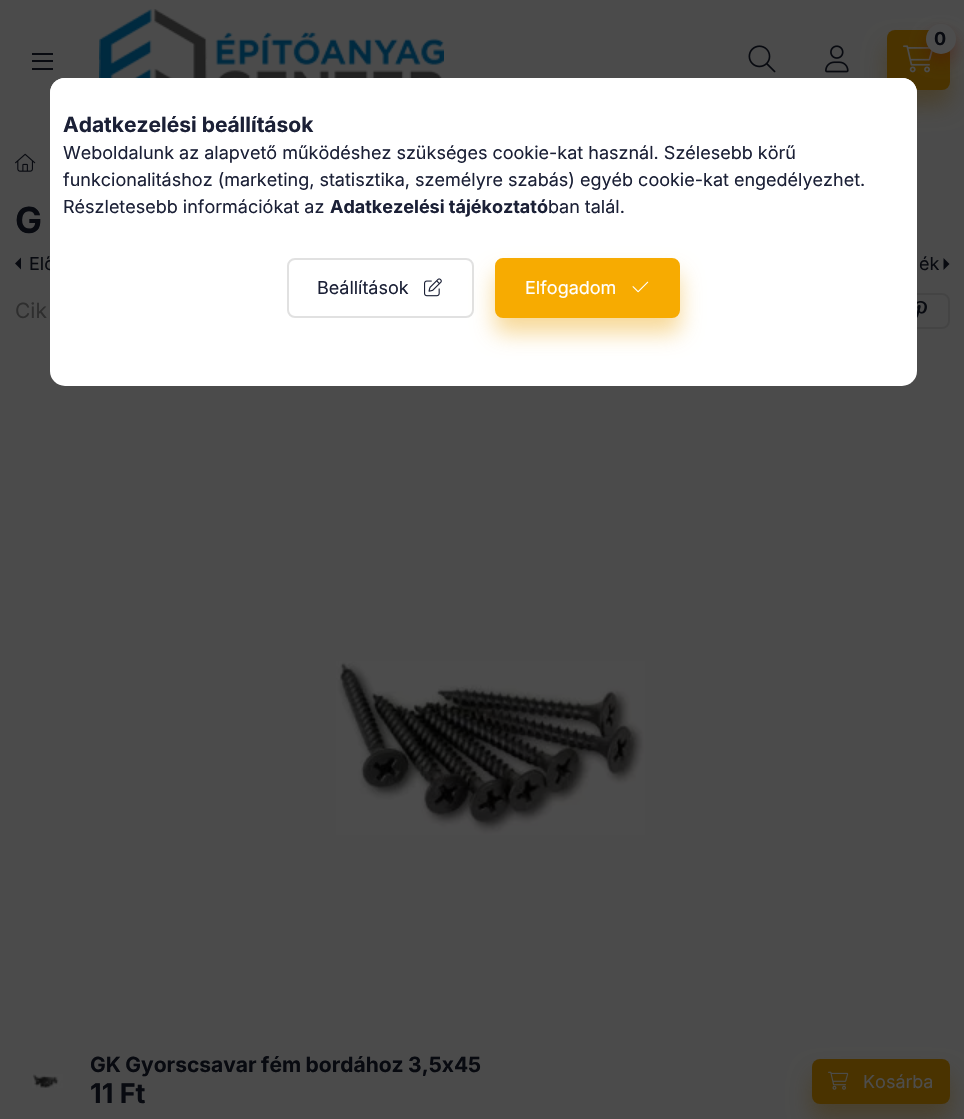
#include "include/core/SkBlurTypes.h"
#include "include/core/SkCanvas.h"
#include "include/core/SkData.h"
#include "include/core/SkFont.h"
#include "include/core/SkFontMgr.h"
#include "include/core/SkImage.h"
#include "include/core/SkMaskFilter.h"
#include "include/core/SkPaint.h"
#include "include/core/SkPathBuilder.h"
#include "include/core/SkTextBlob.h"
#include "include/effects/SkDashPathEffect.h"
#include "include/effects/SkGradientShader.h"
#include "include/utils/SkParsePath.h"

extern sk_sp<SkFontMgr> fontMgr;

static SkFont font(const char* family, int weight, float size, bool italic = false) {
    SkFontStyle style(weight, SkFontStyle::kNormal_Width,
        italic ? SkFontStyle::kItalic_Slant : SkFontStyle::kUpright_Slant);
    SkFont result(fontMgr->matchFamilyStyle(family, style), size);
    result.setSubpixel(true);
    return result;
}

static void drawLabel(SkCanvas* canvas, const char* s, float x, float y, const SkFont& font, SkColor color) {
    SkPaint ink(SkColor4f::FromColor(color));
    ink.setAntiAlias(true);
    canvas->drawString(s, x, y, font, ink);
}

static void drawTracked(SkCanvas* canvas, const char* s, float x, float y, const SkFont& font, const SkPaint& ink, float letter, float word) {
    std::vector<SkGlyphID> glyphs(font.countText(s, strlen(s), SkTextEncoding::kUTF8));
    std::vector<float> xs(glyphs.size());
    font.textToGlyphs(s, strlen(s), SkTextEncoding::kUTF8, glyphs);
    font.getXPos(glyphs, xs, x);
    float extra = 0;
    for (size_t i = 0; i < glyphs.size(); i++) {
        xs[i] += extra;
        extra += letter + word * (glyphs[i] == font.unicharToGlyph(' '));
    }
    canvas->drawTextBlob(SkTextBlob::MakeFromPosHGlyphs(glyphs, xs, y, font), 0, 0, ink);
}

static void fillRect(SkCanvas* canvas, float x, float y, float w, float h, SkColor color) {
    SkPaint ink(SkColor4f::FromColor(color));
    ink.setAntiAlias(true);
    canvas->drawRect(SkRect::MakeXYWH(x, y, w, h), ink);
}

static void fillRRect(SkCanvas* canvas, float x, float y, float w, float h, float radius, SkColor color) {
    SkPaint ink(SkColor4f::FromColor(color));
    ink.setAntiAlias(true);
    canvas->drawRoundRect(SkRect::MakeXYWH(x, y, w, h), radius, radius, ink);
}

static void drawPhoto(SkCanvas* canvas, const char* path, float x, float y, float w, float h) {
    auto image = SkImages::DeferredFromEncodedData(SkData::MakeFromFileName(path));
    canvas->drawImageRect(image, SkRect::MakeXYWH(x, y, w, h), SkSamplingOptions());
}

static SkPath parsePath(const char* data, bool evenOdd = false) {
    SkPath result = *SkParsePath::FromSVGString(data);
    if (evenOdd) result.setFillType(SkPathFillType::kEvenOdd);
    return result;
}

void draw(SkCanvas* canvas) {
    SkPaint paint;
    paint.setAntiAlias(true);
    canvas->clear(0xFF4B4B4B);
    fillRect(canvas, 32, 53, 21, 2, 0xFF080A10);
    fillRect(canvas, 32, 60, 21, 2, 0xFF080A10);
    fillRect(canvas, 32, 68, 21, 2, 0xFF080A10);
    drawPhoto(canvas, "assets/img1.png", 99, 9, 345, 69);
    paint.setColor(0x66463000);
    paint.setMaskFilter(SkMaskFilter::MakeBlur(kNormal_SkBlurStyle, 11));
    canvas->drawRoundRect(SkRect::MakeXYWH(887, 45, 63, 60), 8, 8, paint);
    paint.setMaskFilter(nullptr);
    fillRRect(canvas, 887, 30, 63, 60, 8, 0xFF4A3300);
    drawPhoto(canvas, "assets/img2.png", 903, 45, 30, 28);
    paint.setColor(0x664D1308);
    paint.setMaskFilter(SkMaskFilter::MakeBlur(kNormal_SkBlurStyle, 7.5f));
    canvas->drawRoundRect(SkRect::MakeXYWH(926, 32, 30, 30), 15, 15, paint);
    paint.setMaskFilter(nullptr);
    paint.setColor(0xFF4D4D4D);
    canvas->drawCircle(941, 39, 15, paint);
    SkFont font1 = font("Inter", 700, 18);
    drawLabel(canvas, "0", 934, 45, font1, 0xFF080A10);
    drawPhoto(canvas, "assets/img3.png", 748, 45, 28, 28);
    drawPhoto(canvas, "assets/img4.png", 825, 45, 24, 28);
    drawPhoto(canvas, "assets/img5.png", 15, 153, 21, 19);
    SkFont font2 = font("Inter", 700, 36);
    paint.setColor(0xFF080A10);
    drawTracked(canvas, "G", 15, 233, font2, paint, 0, -1);
    canvas->drawPath(parsePath("M21 269.5V257.5L15 263.5Z"), paint);
    SkFont font3 = font("Inter", 400, 18);
    drawLabel(canvas, "Elő", 29, 270, font3, 0xFF080A10);
    drawLabel(canvas, "ék", 919, 270, font3, 0xFF080A10);
    canvas->drawPath(parsePath("M943.5 270V258L949.5 264Z"), paint);
    SkFont font4 = font("Inter", 400, 21);
    drawLabel(canvas, "Cik", 15, 318, font4, 0xFF2E2E2E);
    paint.setStroke(true);
    paint.setStrokeWidth(2);
    paint.setColor(0xFF444444);
    canvas->drawRoundRect(SkRect::MakeXYWH(891, 294, 58, 34), 7, 7, paint);
    drawPhoto(canvas, "assets/img6.png", 917, 301, 10, 17);
    drawPhoto(canvas, "assets/img7.png", 336, 661, 309, 174);
    drawPhoto(canvas, "assets/img8.png", 32, 1074, 31, 14);
    SkFont font5 = font("Inter", 700, 21);
    paint.setStroke(false);
    paint.setColor(0xFF080A10);
    drawTracked(canvas, "GK Gyorscsavar fém bordához 3,5x45", 90, 1072, font5, paint, 0, -0.5f);
    SkFont font6 = font("Inter", 700, 27);
    drawLabel(canvas, "11 Ft", 90, 1103, font6, 0xFF080A10);
    paint.setColor(0x66463000);
    paint.setMaskFilter(SkMaskFilter::MakeBlur(kNormal_SkBlurStyle, 11));
    canvas->drawRoundRect(SkRect::MakeXYWH(812, 1074, 138, 45), 8, 8, paint);
    paint.setMaskFilter(nullptr);
    fillRRect(canvas, 812, 1059, 138, 45, 8, 0xFF4A3300);
    drawPhoto(canvas, "assets/img9.png", 828, 1071, 21, 19);
    drawLabel(canvas, "Kosárba", 863, 1088, font3, 0xFF4D4D4D);
    fillRRect(canvas, 50, 78, 867, 308, 15, 0xFFFFFFFF);
    paint.setColor(0xFFFFFFFF);
    canvas->drawPath(parsePath("M65 78H902C910.5 78 917 84.5 917 93V356H50V93C50 84.5 56.5 78 65 78Z"), paint);
    drawLabel(canvas, "Adatkezelési beállítások", 63, 132, font5, 0xFF1B2036);
    drawLabel(canvas, "Weboldalunk az alapvető működéshez szükséges cookie-kat használ. Szélesebb körű", 63, 159, font3, 0xFF1B2036);
    drawLabel(canvas, "funkcionalitáshoz (marketing, statisztika, személyre szabás) egyéb cookie-kat engedélyezhet.", 63, 186, font3, 0xFF1B2036);
    drawLabel(canvas, "Részletesebb információkat az", 63, 213, font3, 0xFF1B2036);
    drawLabel(canvas, "Adatkezelési tájékoztató", 330, 213, font1, 0xFF1B2036);
    drawLabel(canvas, "ban talál.", 548, 213, font3, 0xFF1B2036);
    paint.setStroke(true);
    paint.setColor(0xFFE1E1E1);
    canvas->drawRoundRect(SkRect::MakeXYWH(288, 259, 185, 58), 7, 7, paint);
    drawLabel(canvas, "Beállítások", 317, 294, font3, 0xFF1B2036);
    drawPhoto(canvas, "assets/img10.png", 424, 278, 18, 19);
    paint.setStroke(false);
    paint.setColor(0x66EAA000);
    paint.setMaskFilter(SkMaskFilter::MakeBlur(kNormal_SkBlurStyle, 11));
    canvas->drawRoundRect(SkRect::MakeXYWH(495, 273, 185, 60), 8, 8, paint);
    paint.setMaskFilter(nullptr);
    paint.setColor(0xFFF7AB01);
    canvas->drawRoundRect(SkRect::MakeXYWH(496, 259, 183, 58), 7, 7, paint);
    paint.setStroke(true);
    canvas->drawRoundRect(SkRect::MakeXYWH(496, 259, 183, 58), 7, 7, paint);
    drawLabel(canvas, "Elfogadom", 525, 294, font3, 0xFFFFFFFF);
    drawPhoto(canvas, "assets/img11.png", 632, 281, 17, 12);
}
